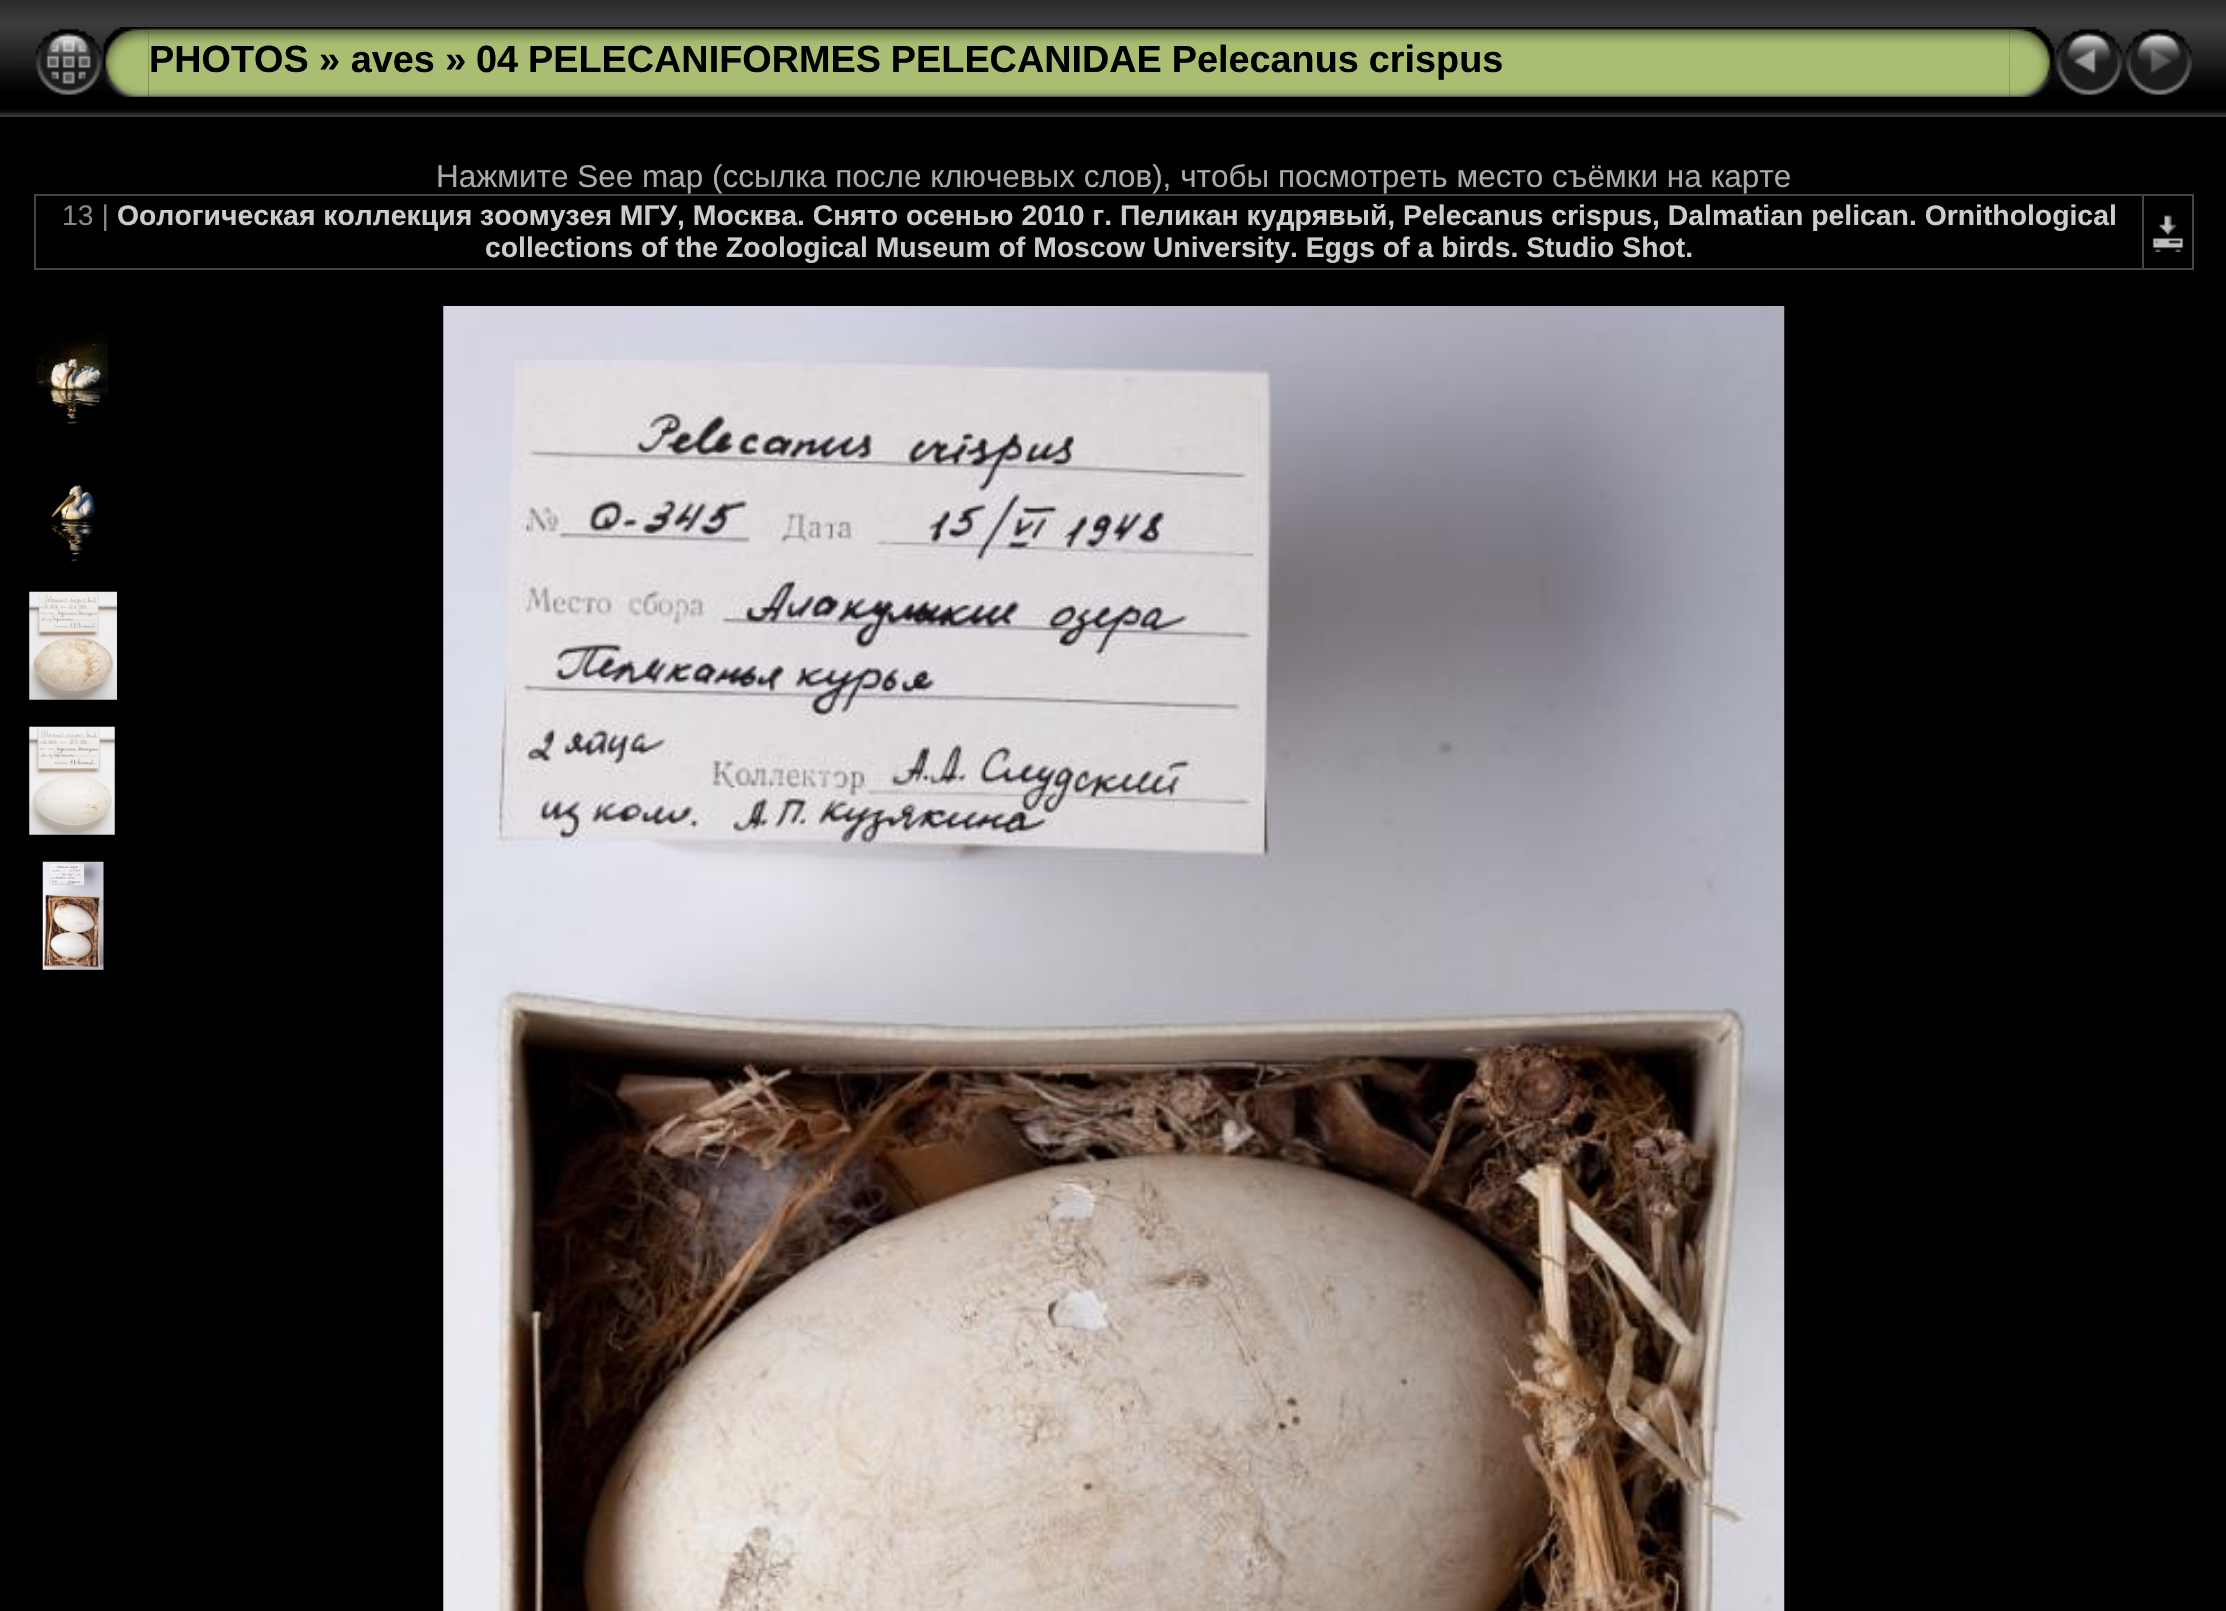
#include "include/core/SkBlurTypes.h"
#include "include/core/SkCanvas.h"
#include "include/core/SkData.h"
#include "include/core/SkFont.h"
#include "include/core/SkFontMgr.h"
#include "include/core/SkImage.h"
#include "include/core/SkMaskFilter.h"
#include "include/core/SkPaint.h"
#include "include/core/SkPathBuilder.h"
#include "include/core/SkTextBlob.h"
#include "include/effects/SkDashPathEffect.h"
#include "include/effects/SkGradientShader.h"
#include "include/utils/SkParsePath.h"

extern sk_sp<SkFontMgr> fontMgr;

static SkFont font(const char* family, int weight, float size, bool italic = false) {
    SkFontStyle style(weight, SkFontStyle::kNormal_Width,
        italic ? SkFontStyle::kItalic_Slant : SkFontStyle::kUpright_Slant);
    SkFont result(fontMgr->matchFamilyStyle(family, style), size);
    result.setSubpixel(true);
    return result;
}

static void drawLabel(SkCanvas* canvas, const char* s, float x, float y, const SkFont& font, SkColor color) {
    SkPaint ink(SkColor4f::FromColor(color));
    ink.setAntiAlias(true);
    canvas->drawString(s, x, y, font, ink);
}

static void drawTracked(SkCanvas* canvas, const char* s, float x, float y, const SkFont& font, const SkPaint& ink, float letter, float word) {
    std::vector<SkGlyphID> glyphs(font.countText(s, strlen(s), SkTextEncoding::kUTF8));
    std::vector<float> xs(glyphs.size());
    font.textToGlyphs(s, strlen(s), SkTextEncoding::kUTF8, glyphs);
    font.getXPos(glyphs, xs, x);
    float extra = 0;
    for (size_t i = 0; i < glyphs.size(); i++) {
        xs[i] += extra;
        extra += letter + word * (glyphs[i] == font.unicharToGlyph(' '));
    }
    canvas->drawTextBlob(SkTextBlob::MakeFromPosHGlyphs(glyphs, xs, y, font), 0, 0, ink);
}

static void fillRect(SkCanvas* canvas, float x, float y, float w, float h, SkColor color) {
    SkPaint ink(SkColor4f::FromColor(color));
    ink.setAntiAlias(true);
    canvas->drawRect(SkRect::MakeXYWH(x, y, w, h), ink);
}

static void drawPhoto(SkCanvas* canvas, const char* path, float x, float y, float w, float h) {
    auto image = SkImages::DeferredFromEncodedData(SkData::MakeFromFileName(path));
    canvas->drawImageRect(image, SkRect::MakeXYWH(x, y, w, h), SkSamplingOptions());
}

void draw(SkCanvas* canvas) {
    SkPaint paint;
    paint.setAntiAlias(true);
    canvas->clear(0xFF000000);
    drawPhoto(canvas, "assets/img1.png", 0, 0, 2226, 117);
    drawPhoto(canvas, "assets/img2.png", 35, 28, 67, 68);
    drawPhoto(canvas, "assets/img4.png", 148, 27, 1862, 70);
    drawPhoto(canvas, "assets/img3.png", 103, 27, 46, 70);
    SkFont font1 = font("Liberation Sans", 700, 37.8f);
    drawLabel(canvas, "PHOTOS » aves »", 149, 72, font1, 0xFF000000);
    paint.setColor(0xFF000000);
    drawTracked(canvas, "04 PELECANIFORMES PELECANIDAE Pelecanus crispus", 476, 72, font1, paint, 0, -0.5f);
    drawPhoto(canvas, "assets/img5.png", 2009, 27, 46, 70);
    drawPhoto(canvas, "assets/img6.png", 2056, 28, 67, 68);
    drawPhoto(canvas, "assets/img7.png", 2125, 28, 67, 68);
    SkFont font2 = font("Liberation Sans", 400, 31.5f);
    drawLabel(canvas, "Нажмите See map (ссылка после ключевых слов), чтобы посмотреть место съёмки на карте", 436, 187, font2, 0xFFAAAAAA);
    fillRect(canvas, 34, 194, 2160, 2, 0xFF444444);
    fillRect(canvas, 2192, 194, 2, 76, 0xFF444444);
    fillRect(canvas, 34, 268, 2160, 2, 0xFF444444);
    fillRect(canvas, 34, 194, 2, 76, 0xFF444444);
    SkFont font3 = font("Liberation Sans", 400, 28.35f);
    drawLabel(canvas, "13 |", 62, 225, font3, 0xFF888888);
    SkFont font4 = font("Liberation Sans", 700, 28.35f);
    drawLabel(canvas, "Оологическая коллекция зоомузея МГУ, Москва. Снято осенью 2010 г. Пеликан кудрявый, Pelecanus crispus, Dalmatian pelican. Ornithological", 117, 225, font4, 0xFFCCCCCC);
    drawLabel(canvas, "collections of the Zoological Museum of Moscow University. Eggs of a birds. Studio Shot.", 485, 257, font4, 0xFFCCCCCC);
    fillRect(canvas, 2142, 194, 2, 76, 0xFF444444);
    drawPhoto(canvas, "assets/img8.png", 2152, 215, 32, 37);
    drawPhoto(canvas, "assets/img9.png", 36, 329, 72, 95);
    drawPhoto(canvas, "assets/img10.png", 51, 485, 44, 77);
    drawPhoto(canvas, "assets/img11.png", 29, 591, 88, 109);
    drawPhoto(canvas, "assets/img12.png", 29, 726, 86, 109);
    drawPhoto(canvas, "assets/img13.png", 42, 861, 62, 109);
    drawPhoto(canvas, "assets/img14.png", 443, 306, 1342, 1305);
}
